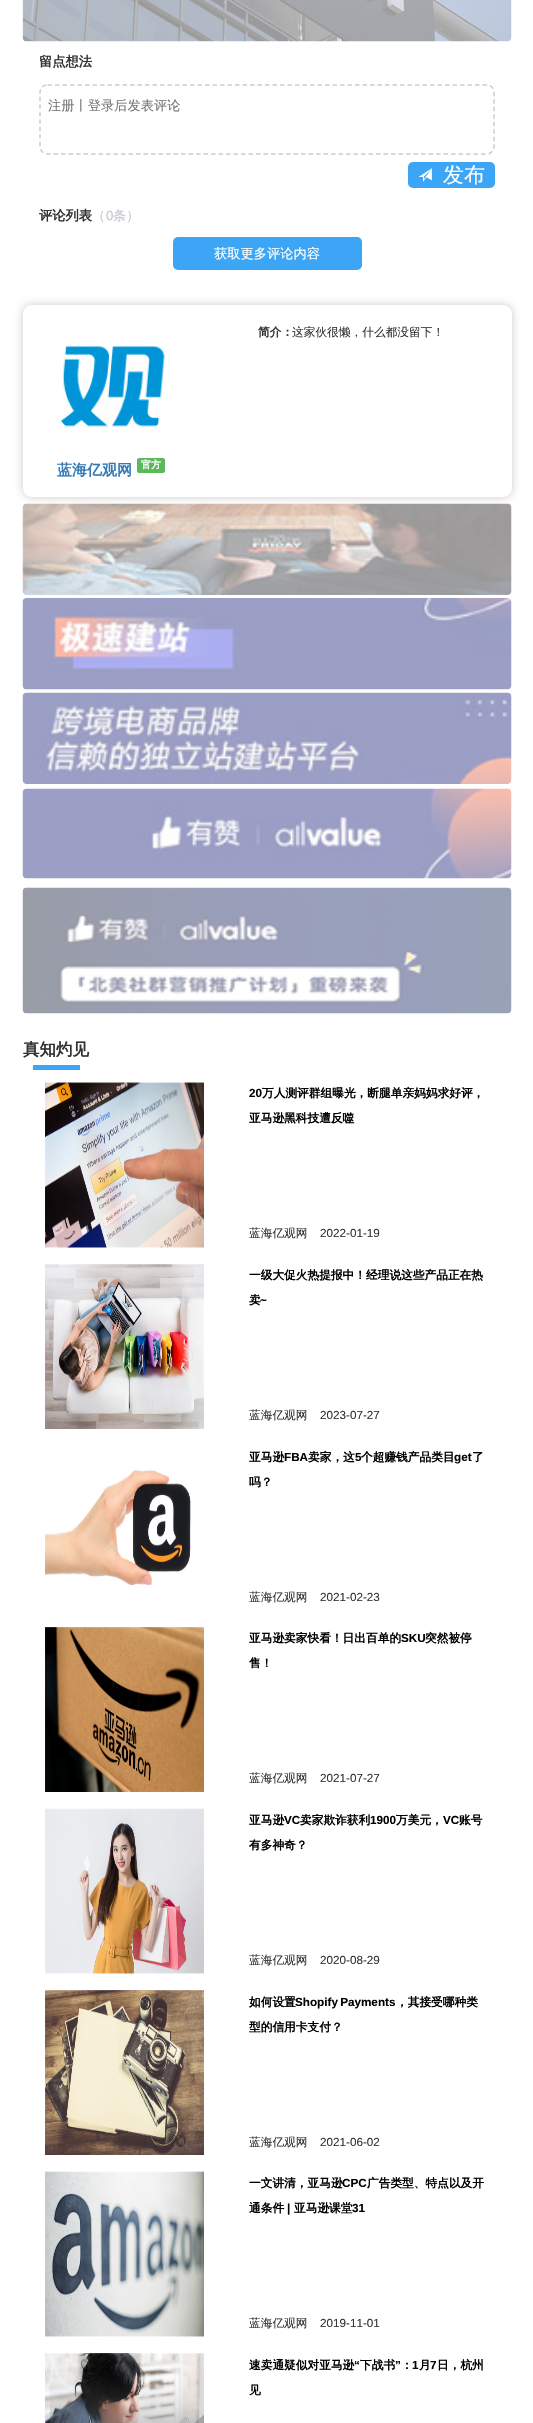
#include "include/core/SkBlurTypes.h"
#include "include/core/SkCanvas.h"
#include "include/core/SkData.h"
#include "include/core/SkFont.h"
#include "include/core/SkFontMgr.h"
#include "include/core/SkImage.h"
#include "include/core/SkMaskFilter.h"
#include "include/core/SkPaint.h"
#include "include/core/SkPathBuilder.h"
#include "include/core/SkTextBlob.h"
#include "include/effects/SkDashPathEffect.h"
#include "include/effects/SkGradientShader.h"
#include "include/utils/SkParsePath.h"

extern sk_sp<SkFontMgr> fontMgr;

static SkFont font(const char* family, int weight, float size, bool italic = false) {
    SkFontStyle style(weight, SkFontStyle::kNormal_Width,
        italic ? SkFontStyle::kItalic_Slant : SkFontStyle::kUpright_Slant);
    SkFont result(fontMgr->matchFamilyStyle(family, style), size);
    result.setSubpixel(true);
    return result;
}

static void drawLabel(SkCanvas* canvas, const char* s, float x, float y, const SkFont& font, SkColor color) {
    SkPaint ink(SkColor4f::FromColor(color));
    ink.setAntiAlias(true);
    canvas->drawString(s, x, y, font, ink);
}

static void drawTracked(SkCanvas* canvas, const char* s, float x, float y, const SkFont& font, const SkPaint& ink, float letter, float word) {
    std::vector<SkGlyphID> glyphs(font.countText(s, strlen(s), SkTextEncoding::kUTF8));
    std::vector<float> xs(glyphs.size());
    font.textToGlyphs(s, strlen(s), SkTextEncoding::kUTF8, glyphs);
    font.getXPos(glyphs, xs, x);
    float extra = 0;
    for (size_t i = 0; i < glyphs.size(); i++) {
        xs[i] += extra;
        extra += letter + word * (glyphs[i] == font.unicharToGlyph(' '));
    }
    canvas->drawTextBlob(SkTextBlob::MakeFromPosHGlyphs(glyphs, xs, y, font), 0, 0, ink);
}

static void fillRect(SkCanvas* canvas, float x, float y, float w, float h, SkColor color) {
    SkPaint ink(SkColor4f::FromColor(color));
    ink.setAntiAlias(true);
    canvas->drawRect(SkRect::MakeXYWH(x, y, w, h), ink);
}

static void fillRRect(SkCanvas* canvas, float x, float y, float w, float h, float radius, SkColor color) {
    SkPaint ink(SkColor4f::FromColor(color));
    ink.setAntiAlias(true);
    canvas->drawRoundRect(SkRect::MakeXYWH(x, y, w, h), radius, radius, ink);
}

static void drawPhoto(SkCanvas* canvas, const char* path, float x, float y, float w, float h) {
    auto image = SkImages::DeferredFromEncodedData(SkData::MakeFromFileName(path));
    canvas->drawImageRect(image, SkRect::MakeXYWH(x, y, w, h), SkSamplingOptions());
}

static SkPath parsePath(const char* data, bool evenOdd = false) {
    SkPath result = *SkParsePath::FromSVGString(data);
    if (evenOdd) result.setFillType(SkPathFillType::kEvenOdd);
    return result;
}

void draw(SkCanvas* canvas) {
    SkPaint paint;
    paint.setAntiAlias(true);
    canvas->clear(0xFFFFFFFF);
    drawPhoto(canvas, "assets/img1.png", 22, 0, 490, 42);
    SkFont font1 = font("WenQuanYi Zen Hei", 700, 13.25f);
    drawLabel(canvas, "留点想法", 39, 66, font1, 0xFF333333);
    paint.setStroke(true);
    paint.setStrokeWidth(1.5f);
    paint.setColor(0xFFCDCDCD);
    paint.setPathEffect(SkDashPathEffect::Make({{4.5f, 3}}, 0));
    canvas->drawPath(parsePath("M47.5 85H486.5C491 85 494 88 494 92.5V146C494 150.5 491 154 486.5 154H47.5C43 154 40 150.5 40 146V92.5C40 88 43 85 47.5 85Z"), paint);
    paint.setPathEffect(nullptr);
    SkFont font2 = font("WenQuanYi Zen Hei", 500, 13.25f);
    drawLabel(canvas, "注册丨登录后发表评论", 48, 110, font2, 0xFF757575);
    fillRRect(canvas, 408, 162, 87, 26, 5, 0xFF3CA5F6);
    drawPhoto(canvas, "assets/img2.png", 418, 168, 14, 14);
    SkFont font3 = font("WenQuanYi Zen Hei", 500, 21);
    drawLabel(canvas, "发布", 443, 182, font3, 0xFFFFFFFF);
    drawLabel(canvas, "评论列表", 39, 220, font1, 0xFF333333);
    drawLabel(canvas, "（", 92, 220, font2, 0xFFC4C7CE);
    SkFont font4 = font("Liberation Sans", 400, 13.25f);
    drawLabel(canvas, "0", 106, 220, font4, 0xFFC4C7CE);
    drawLabel(canvas, "条）", 113, 220, font2, 0xFFC4C7CE);
    fillRRect(canvas, 173, 237, 189, 33, 5, 0xFF3CA5F6);
    drawLabel(canvas, "获取更多评论内容", 214, 258, font2, 0xFFFFFFFF);
    canvas->save();
    canvas->clipPath(parsePath("M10 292H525V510H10ZM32 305H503C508 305 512 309 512 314V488C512 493 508 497 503 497H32C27 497 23 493 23 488V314C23 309 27 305 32 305Z", true), true);
    paint.setStroke(false);
    paint.setColor(0xFFC8C8C8);
    paint.setMaskFilter(SkMaskFilter::MakeBlur(kNormal_SkBlurStyle, 4));
    canvas->drawRoundRect(SkRect::MakeXYWH(23, 305, 489, 192), 9, 9, paint);
    paint.setMaskFilter(nullptr);
    canvas->restore();
    SkFont font5 = font("WenQuanYi Zen Hei", 700, 11.7f);
    drawLabel(canvas, "简介：", 258, 336, font5, 0xFF333333);
    SkFont font6 = font("WenQuanYi Zen Hei", 500, 11.7f);
    drawLabel(canvas, "这家伙很懒，什么都没留下！", 292, 336, font6, 0xFF333333);
    drawPhoto(canvas, "assets/img3.png", 60, 346, 105, 81);
    SkFont font7 = font("WenQuanYi Zen Hei", 700, 15);
    drawLabel(canvas, "蓝海亿观网", 57, 475, font7, 0xFF337AB7);
    fillRRect(canvas, 137, 458, 28, 15, 2, 0xFF5CB85C);
    SkFont font8 = font("WenQuanYi Zen Hei", 700, 10);
    drawLabel(canvas, "官方", 141, 468, font8, 0xFFFFFFFF);
    drawPhoto(canvas, "assets/img4.png", 22, 503, 490, 92);
    drawPhoto(canvas, "assets/img5.png", 22, 598, 490, 92);
    drawPhoto(canvas, "assets/img6.png", 22, 692, 490, 92);
    drawPhoto(canvas, "assets/img7.png", 22, 788, 490, 91);
    drawPhoto(canvas, "assets/img8.png", 22, 887, 490, 127);
    SkFont font9 = font("WenQuanYi Zen Hei", 700, 16.5f);
    drawLabel(canvas, "真知灼见", 23, 1055, font9, 0xFF333333);
    fillRect(canvas, 33, 1065, 47, 5, 0xFF3CA5F6);
    drawPhoto(canvas, "assets/img9.png", 45, 1082, 159, 166);
    SkFont font10 = font("Liberation Sans", 700, 11.7f);
    drawLabel(canvas, "20", 249, 1097, font10, 0xFF000000);
    drawLabel(canvas, "万人测评群组曝光，断腿单亲妈妈求好评，", 262, 1097, font5, 0xFF000000);
    drawLabel(canvas, "亚马逊黑科技遭反噬", 249, 1122, font5, 0xFF000000);
    drawLabel(canvas, "蓝海亿观网", 249, 1237, font6, 0xFF333333);
    SkFont font11 = font("Liberation Sans", 400, 11.7f);
    drawLabel(canvas, "2022-01-19", 320, 1237, font11, 0xFF333333);
    drawPhoto(canvas, "assets/img10.png", 45, 1264, 159, 165);
    drawLabel(canvas, "一级大促火热提报中！经理说这些产品正在热", 249, 1279, font5, 0xFF000000);
    drawLabel(canvas, "卖", 249, 1304, font5, 0xFF000000);
    drawLabel(canvas, "~", 260, 1304, font10, 0xFF000000);
    drawLabel(canvas, "蓝海亿观网", 249, 1419, font6, 0xFF333333);
    drawLabel(canvas, "2023-07-27", 320, 1419, font11, 0xFF333333);
    drawPhoto(canvas, "assets/img11.png", 45, 1469, 146, 117);
    drawLabel(canvas, "亚马逊", 249, 1461, font5, 0xFF000000);
    drawLabel(canvas, "FBA", 284, 1461, font10, 0xFF000000);
    drawLabel(canvas, "卖家，这", 308, 1461, font5, 0xFF000000);
    drawLabel(canvas, "5", 355, 1461, font10, 0xFF000000);
    drawLabel(canvas, "个超赚钱产品类目", 361, 1461, font5, 0xFF000000);
    drawLabel(canvas, "get", 454, 1461, font10, 0xFF000000);
    drawLabel(canvas, "了", 472, 1461, font5, 0xFF000000);
    drawLabel(canvas, "吗？", 249, 1486, font5, 0xFF000000);
    drawLabel(canvas, "蓝海亿观网", 249, 1601, font6, 0xFF333333);
    drawLabel(canvas, "2021-02-23", 320, 1601, font11, 0xFF333333);
    drawPhoto(canvas, "assets/img12.png", 45, 1627, 159, 165);
    drawLabel(canvas, "亚马逊卖家快看！日出百单的", 249, 1642, font5, 0xFF000000);
    drawLabel(canvas, "SKU", 401, 1642, font10, 0xFF000000);
    drawLabel(canvas, "突然被停", 425, 1642, font5, 0xFF000000);
    drawLabel(canvas, "售！", 249, 1667, font5, 0xFF000000);
    drawLabel(canvas, "蓝海亿观网", 249, 1782, font6, 0xFF333333);
    drawLabel(canvas, "2021-07-27", 320, 1782, font11, 0xFF333333);
    drawPhoto(canvas, "assets/img13.png", 45, 1808, 159, 166);
    drawLabel(canvas, "亚马逊", 249, 1824, font5, 0xFF000000);
    drawLabel(canvas, "VC", 284, 1824, font10, 0xFF000000);
    drawLabel(canvas, "卖家欺诈获利", 300, 1824, font5, 0xFF000000);
    drawLabel(canvas, "1900", 370, 1824, font10, 0xFF000000);
    drawLabel(canvas, "万美元，", 396, 1824, font5, 0xFF000000);
    drawLabel(canvas, "VC", 443, 1824, font10, 0xFF000000);
    drawLabel(canvas, "账号", 459, 1824, font5, 0xFF000000);
    drawLabel(canvas, "有多神奇？", 249, 1849, font5, 0xFF000000);
    drawLabel(canvas, "蓝海亿观网", 249, 1964, font6, 0xFF333333);
    drawLabel(canvas, "2020-08-29", 320, 1964, font11, 0xFF333333);
    drawPhoto(canvas, "assets/img14.png", 45, 1990, 159, 165);
    drawLabel(canvas, "如何设置", 249, 2006, font5, 0xFF000000);
    paint.setColor(0xFF000000);
    drawTracked(canvas, "Shopify Payments", 295, 2006, font10, paint, 0, -1);
    drawLabel(canvas, "，其接受哪种类", 396, 2006, font5, 0xFF000000);
    drawLabel(canvas, "型的信用卡支付？", 249, 2031, font5, 0xFF000000);
    drawLabel(canvas, "蓝海亿观网", 249, 2146, font6, 0xFF333333);
    drawLabel(canvas, "2021-06-02", 320, 2146, font11, 0xFF333333);
    drawPhoto(canvas, "assets/img15.png", 45, 2171, 159, 166);
    drawLabel(canvas, "一文讲清，亚马逊", 249, 2187, font5, 0xFF000000);
    drawLabel(canvas, "CPC", 342, 2187, font10, 0xFF000000);
    drawLabel(canvas, "广告类型、特点以及开", 367, 2187, font5, 0xFF000000);
    drawLabel(canvas, "通条件", 249, 2212, font5, 0xFF000000);
    drawLabel(canvas, "|", 287, 2212, font10, 0xFF000000);
    drawLabel(canvas, "亚马逊课堂", 294, 2212, font5, 0xFF000000);
    drawLabel(canvas, "31", 352, 2212, font10, 0xFF000000);
    drawLabel(canvas, "蓝海亿观网", 249, 2327, font6, 0xFF333333);
    drawLabel(canvas, "2019-11-01", 320, 2327, font11, 0xFF333333);
    drawPhoto(canvas, "assets/img16.png", 45, 2353, 159, 70);
    drawLabel(canvas, "速卖通疑似对亚马逊", 249, 2369, font5, 0xFF000000);
    drawLabel(canvas, "“", 354, 2369, font10, 0xFF000000);
    drawLabel(canvas, "下战书", 360, 2369, font5, 0xFF000000);
    drawLabel(canvas, "”", 395, 2369, font10, 0xFF000000);
    drawLabel(canvas, "：", 401, 2369, font5, 0xFF000000);
    drawLabel(canvas, "1", 412, 2369, font10, 0xFF000000);
    drawLabel(canvas, "月", 419, 2369, font5, 0xFF000000);
    drawLabel(canvas, "7", 430, 2369, font10, 0xFF000000);
    drawLabel(canvas, "日，杭州", 437, 2369, font5, 0xFF000000);
    drawLabel(canvas, "见", 249, 2394, font5, 0xFF000000);
}
